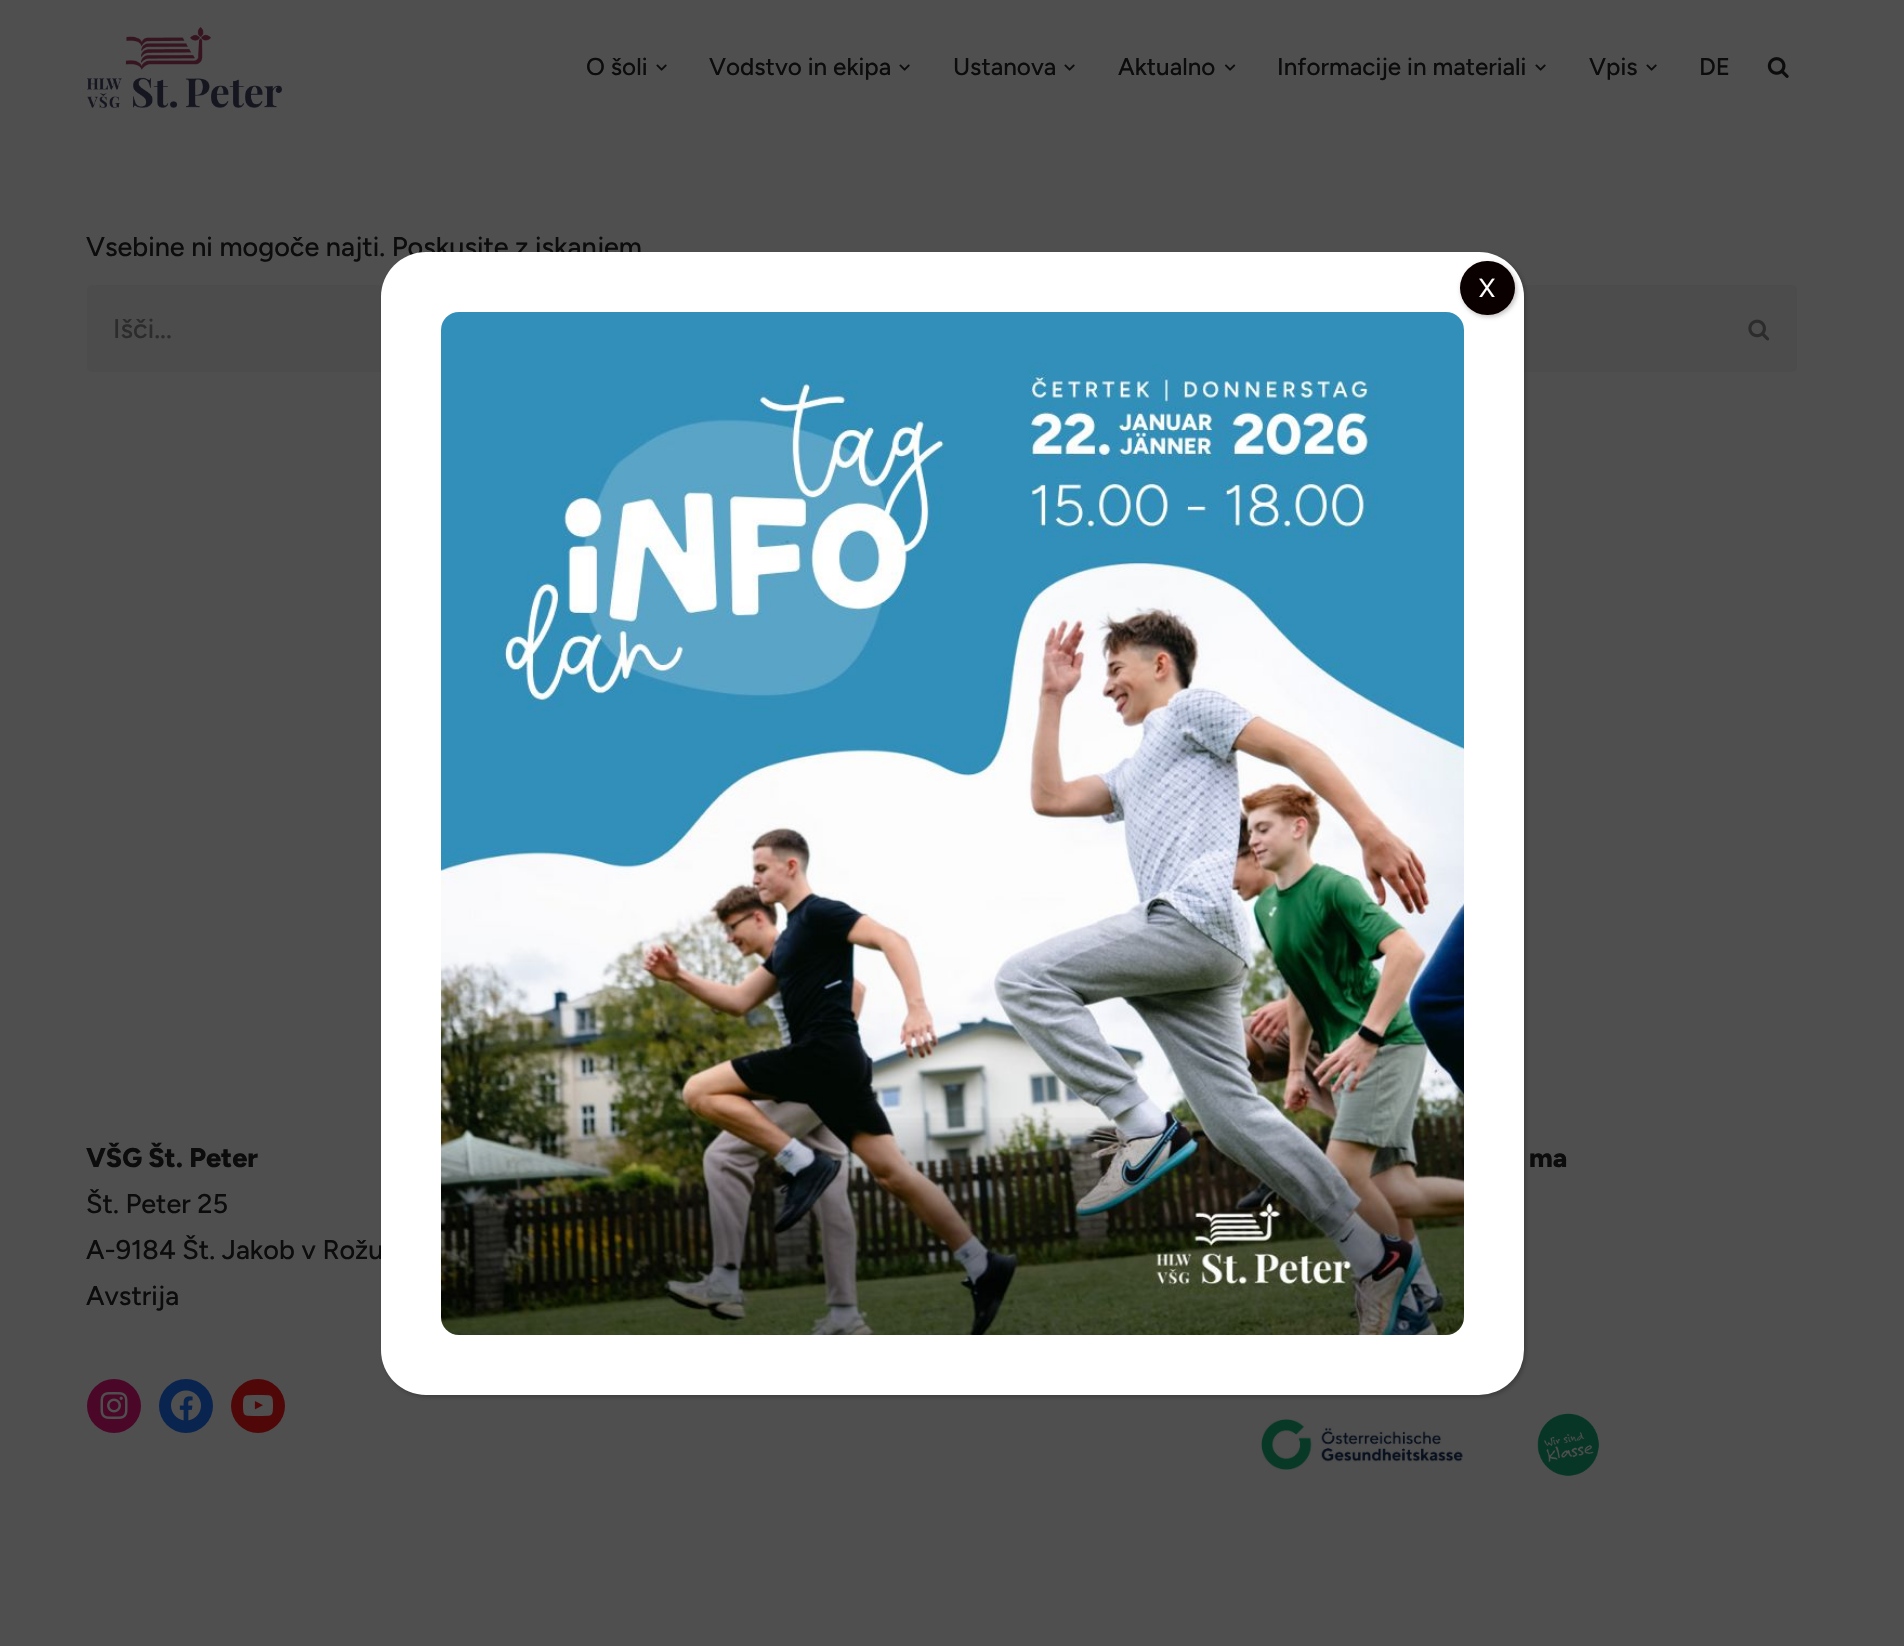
#include "include/core/SkBlurTypes.h"
#include "include/core/SkCanvas.h"
#include "include/core/SkData.h"
#include "include/core/SkFont.h"
#include "include/core/SkFontMgr.h"
#include "include/core/SkImage.h"
#include "include/core/SkMaskFilter.h"
#include "include/core/SkPaint.h"
#include "include/core/SkPathBuilder.h"
#include "include/core/SkTextBlob.h"
#include "include/effects/SkDashPathEffect.h"
#include "include/effects/SkGradientShader.h"
#include "include/utils/SkParsePath.h"

extern sk_sp<SkFontMgr> fontMgr;

static SkFont font(const char* family, int weight, float size, bool italic = false) {
    SkFontStyle style(weight, SkFontStyle::kNormal_Width,
        italic ? SkFontStyle::kItalic_Slant : SkFontStyle::kUpright_Slant);
    SkFont result(fontMgr->matchFamilyStyle(family, style), size);
    result.setSubpixel(true);
    return result;
}

static void drawLabel(SkCanvas* canvas, const char* s, float x, float y, const SkFont& font, SkColor color) {
    SkPaint ink(SkColor4f::FromColor(color));
    ink.setAntiAlias(true);
    canvas->drawString(s, x, y, font, ink);
}

static void fillRRect(SkCanvas* canvas, float x, float y, float w, float h, float radius, SkColor color) {
    SkPaint ink(SkColor4f::FromColor(color));
    ink.setAntiAlias(true);
    canvas->drawRoundRect(SkRect::MakeXYWH(x, y, w, h), radius, radius, ink);
}

static void drawPhoto(SkCanvas* canvas, const char* path, float x, float y, float w, float h) {
    auto image = SkImages::DeferredFromEncodedData(SkData::MakeFromFileName(path));
    canvas->drawImageRect(image, SkRect::MakeXYWH(x, y, w, h), SkSamplingOptions());
}

static SkPath parsePath(const char* data, bool evenOdd = false) {
    SkPath result = *SkParsePath::FromSVGString(data);
    if (evenOdd) result.setFillType(SkPathFillType::kEvenOdd);
    return result;
}

void draw(SkCanvas* canvas) {
    SkPaint paint;
    paint.setAntiAlias(true);
    canvas->clear(0xFF4F4F4F);
    drawPhoto(canvas, "assets/img1.png", 87, 27, 195, 81);
    SkFont font1 = font("Figtree", 500, 24.25f);
    drawLabel(canvas, "O šoli", 586, 75, font1, 0xFF0C0C0C);
    drawPhoto(canvas, "assets/img2.png", 656, 64, 11, 7);
    drawLabel(canvas, "Vodstvo in ekipa", 709, 75, font1, 0xFF0C0C0C);
    drawPhoto(canvas, "assets/img2.png", 899, 64, 11, 7);
    drawLabel(canvas, "Ustanova", 953, 75, font1, 0xFF0C0C0C);
    drawPhoto(canvas, "assets/img2.png", 1064, 64, 11, 7);
    drawLabel(canvas, "Aktualno", 1118, 75, font1, 0xFF0C0C0C);
    drawPhoto(canvas, "assets/img3.png", 1224, 64, 12, 7);
    drawLabel(canvas, "Informacije in materiali", 1277, 75, font1, 0xFF0C0C0C);
    drawPhoto(canvas, "assets/img2.png", 1535, 64, 11, 7);
    drawLabel(canvas, "Vpis", 1589, 75, font1, 0xFF0C0C0C);
    drawPhoto(canvas, "assets/img2.png", 1646, 64, 11, 7);
    drawLabel(canvas, "DE", 1699, 75, font1, 0xFF0C0C0C);
    drawPhoto(canvas, "assets/img4.png", 1767, 57, 22, 21);
    SkFont font2 = font("Figtree", 500, 27);
    drawLabel(canvas, "Vsebine ni mogoče najti. Poskusite z iskanjem", 86, 256, font2, 0xFF0C0C0C);
    paint.setColor(0xFF4C4C4C);
    canvas->drawPath(parsePath("M92 285H1724V372H92C89 372 87 370 87 367V290C87 287 89 285 92 285Z"), paint);
    drawLabel(canvas, "Išči...", 113, 338, font2, 0xFF2C2C2C);
    canvas->drawPath(parsePath("M1724 285H1792C1795 285 1797 287 1797 290V367C1797 370 1795 372 1792 372H1724Z"), paint);
    drawPhoto(canvas, "assets/img5.png", 1748, 319, 22, 22);
    SkFont font3 = font("Figtree", 800, 27);
    drawLabel(canvas, "VŠG Št. Peter", 86, 1167, font3, 0xFF0C0C0C);
    drawLabel(canvas, "Št. Peter 25", 86, 1213, font2, 0xFF0C0C0C);
    drawLabel(canvas, "A-9184 Št. Jakob v Rožu", 86, 1259, font2, 0xFF0C0C0C);
    drawLabel(canvas, "Avstrija", 86, 1305, font2, 0xFF0C0C0C);
    paint.setColor(0xFF4A0728);
    canvas->drawCircle(114, 1406, 27, paint);
    drawPhoto(canvas, "assets/img6.png", 100, 1392, 28, 27);
    paint.setColor(0xFF09244F);
    canvas->drawCircle(186, 1406, 27, paint);
    drawPhoto(canvas, "assets/img7.png", 171, 1390, 30, 31);
    paint.setColor(0xFF4F0707);
    canvas->drawCircle(258, 1406, 27, paint);
    drawPhoto(canvas, "assets/img8.png", 243, 1394, 30, 23);
    drawLabel(canvas, "ma", 1529, 1167, font3, 0xFF0C0C0C);
    drawPhoto(canvas, "assets/img9.png", 1261, 1419, 202, 51);
    drawPhoto(canvas, "assets/img10.png", 1537, 1413, 62, 63);
    paint.setColor(0x3B020202);
    paint.setMaskFilter(SkMaskFilter::MakeBlur(kNormal_SkBlurStyle, 2));
    canvas->drawRoundRect(SkRect::MakeXYWH(383, 254, 1143, 1143), 45, 45, paint);
    paint.setMaskFilter(nullptr);
    fillRRect(canvas, 381, 252, 1143, 1143, 45, 0xFFFFFFFF);
    drawPhoto(canvas, "assets/img11.png", 441, 312, 1023, 1023);
    paint.setMaskFilter(SkMaskFilter::MakeBlur(kNormal_SkBlurStyle, 2));
    canvas->drawRoundRect(SkRect::MakeXYWH(1461, 263, 56, 54), 27, 27, paint);
    paint.setMaskFilter(nullptr);
    fillRRect(canvas, 1460, 261, 55, 54, 27, 0xFF0A0000);
    SkFont font4 = font("Figtree", 400, 26);
    drawLabel(canvas, "X", 1479, 297, font4, 0xFFFFFFFF);
}
